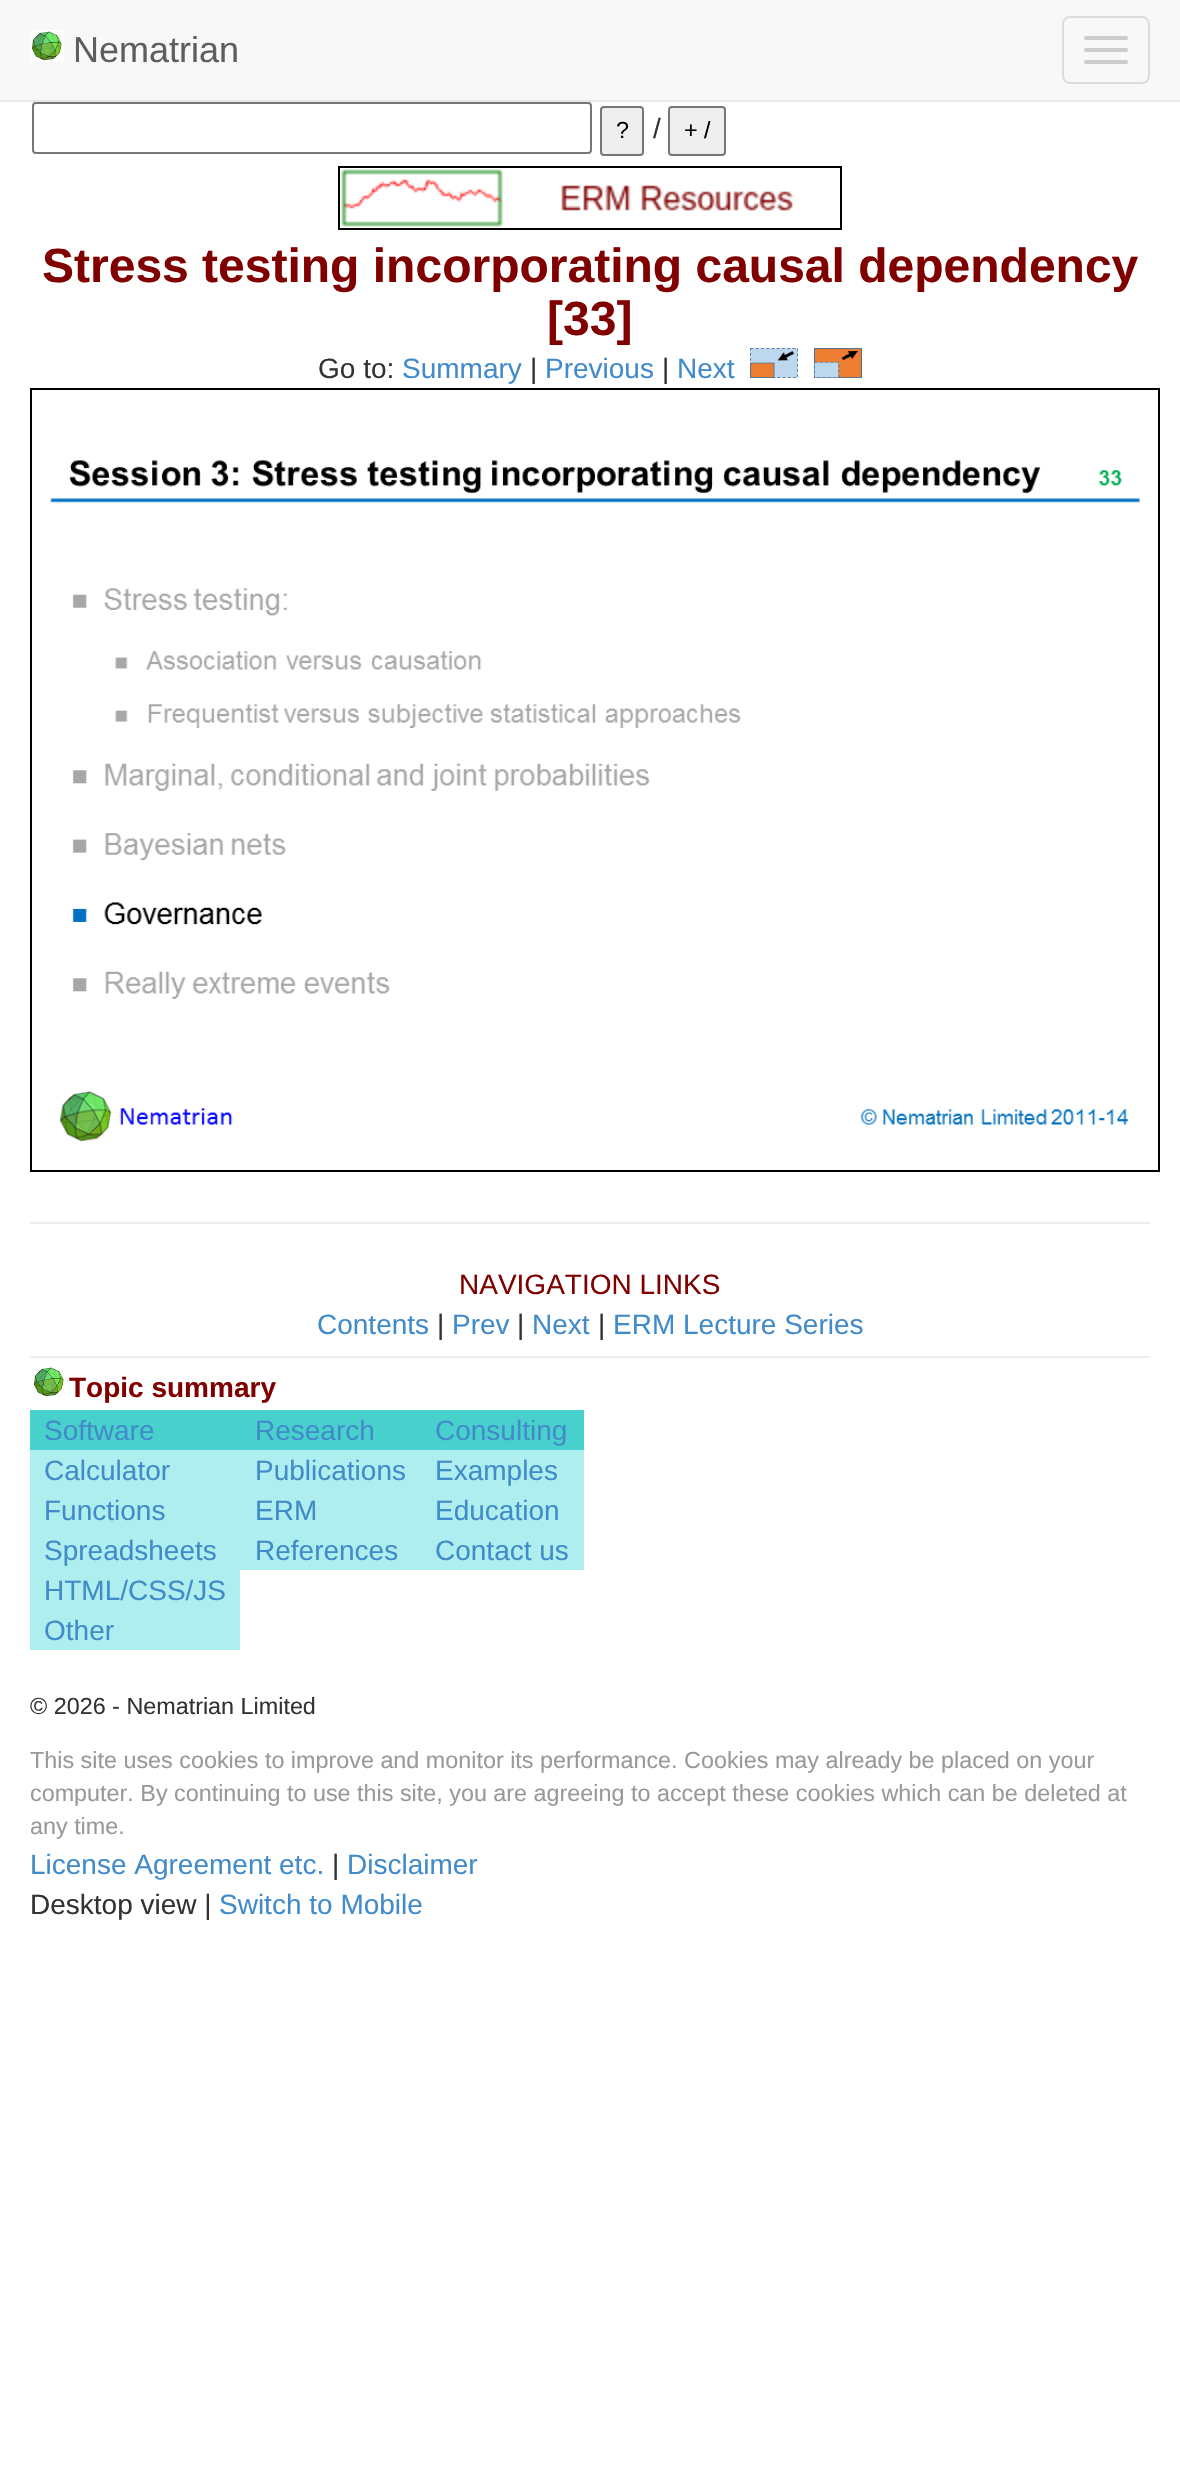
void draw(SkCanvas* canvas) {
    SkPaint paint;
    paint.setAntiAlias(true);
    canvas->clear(0xFFFFFFFF);
    paint.setColor(0xFFF8F8F8);
    canvas->drawRect(SkRect::MakeXYWH(0, 0, 1180, 100), paint);
    paint.setColor(0xFFE7E7E7);
    canvas->drawRect(SkRect::MakeXYWH(0, 100, 1180, 2), paint);
    canvas->drawImageRect(SkImages::DeferredFromEncodedData(SkData::MakeFromFileName("img1.png")), SkRect::MakeXYWH(30, 30, 34, 32), SkSamplingOptions());
    SkFont font1(fontMgr->matchFamilyStyle("Liberation Sans", SkFontStyle::Normal()), 36);
    font1.setSubpixel(true);
    paint.setColor(0xFF5E5E5E);
    canvas->drawString("Nematrian", 73, 62, font1, paint);
    paint.setStyle(SkPaint::kStroke_Style);
    paint.setStrokeWidth(2);
    paint.setColor(0xFFDDDDDD);
    canvas->drawRoundRect(SkRect::MakeXYWH(1063, 17, 86, 66), 7, 7, paint);
    paint.setStyle(SkPaint::kFill_Style);
    paint.setColor(0xFFCCCCCC);
    canvas->drawRoundRect(SkRect::MakeXYWH(1084, 36, 44, 4), 2, 2, paint);
    canvas->drawRoundRect(SkRect::MakeXYWH(1084, 48, 44, 4), 2, 2, paint);
    canvas->drawRoundRect(SkRect::MakeXYWH(1084, 60, 44, 4), 2, 2, paint);
    paint.setStyle(SkPaint::kStroke_Style);
    paint.setColor(0xFF767676);
    canvas->drawRoundRect(SkRect::MakeXYWH(33, 103, 558, 50), 3, 3, paint);
    paint.setStyle(SkPaint::kFill_Style);
    paint.setColor(0xFFEFEFEF);
    canvas->drawRoundRect(SkRect::MakeXYWH(601, 107, 42, 48), 3, 3, paint);
    paint.setStyle(SkPaint::kStroke_Style);
    paint.setColor(0xFF767676);
    canvas->drawRoundRect(SkRect::MakeXYWH(601, 107, 42, 48), 3, 3, paint);
    SkFont font2(fontMgr->matchFamilyStyle("Liberation Sans", SkFontStyle::Normal()), 23.35f);
    font2.setSubpixel(true);
    paint.setStyle(SkPaint::kFill_Style);
    paint.setColor(0xFF000000);
    canvas->drawString("?", 616, 138, font2, paint);
    SkFont font3(fontMgr->matchFamilyStyle("Liberation Sans", SkFontStyle::Normal()), 28);
    font3.setSubpixel(true);
    paint.setColor(0xFF333333);
    canvas->drawString("/", 653, 138, font3, paint);
    paint.setColor(0xFFEFEFEF);
    canvas->drawRoundRect(SkRect::MakeXYWH(669, 107, 56, 48), 3, 3, paint);
    paint.setStyle(SkPaint::kStroke_Style);
    paint.setColor(0xFF767676);
    canvas->drawRoundRect(SkRect::MakeXYWH(669, 107, 56, 48), 3, 3, paint);
    paint.setStyle(SkPaint::kFill_Style);
    paint.setColor(0xFF000000);
    canvas->drawString("+ /", 684, 138, font2, paint);
    paint.setStyle(SkPaint::kStroke_Style);
    canvas->drawRect(SkRect::MakeXYWH(339, 167, 502, 62), paint);
    canvas->drawImageRect(SkImages::DeferredFromEncodedData(SkData::MakeFromFileName("img2.png")), SkRect::MakeXYWH(341, 169, 452, 58), SkSamplingOptions());
    SkFont font4(fontMgr->matchFamilyStyle("Liberation Sans", SkFontStyle::Bold()), 48);
    font4.setSubpixel(true);
    paint.setStyle(SkPaint::kFill_Style);
    paint.setColor(0xFF800000);
    canvas->drawString("Stress testing incorporating causal dependency", 42, 282, font4, paint);
    canvas->drawString("[33]", 547, 335, font4, paint);
    paint.setColor(0xFF333333);
    canvas->drawString("Go to:", 318, 378, font3, paint);
    paint.setColor(0xFF428BCA);
    canvas->drawString("Summary", 402, 378, font3, paint);
    paint.setColor(0xFF333333);
    canvas->drawString("|", 530, 378, font3, paint);
    paint.setColor(0xFF428BCA);
    canvas->drawString("Previous", 545, 378, font3, paint);
    paint.setColor(0xFF333333);
    canvas->drawString("|", 662, 378, font3, paint);
    paint.setColor(0xFF428BCA);
    canvas->drawString("Next", 677, 378, font3, paint);
    canvas->drawImageRect(SkImages::DeferredFromEncodedData(SkData::MakeFromFileName("img3.png")), SkRect::MakeXYWH(750, 348, 48, 30), SkSamplingOptions());
    canvas->drawImageRect(SkImages::DeferredFromEncodedData(SkData::MakeFromFileName("img4.png")), SkRect::MakeXYWH(814, 348, 48, 30), SkSamplingOptions());
    paint.setStyle(SkPaint::kStroke_Style);
    paint.setColor(0xFF000000);
    canvas->drawRect(SkRect::MakeXYWH(31, 389, 1128, 782), paint);
    canvas->drawImageRect(SkImages::DeferredFromEncodedData(SkData::MakeFromFileName("img5.png")), SkRect::MakeXYWH(50, 460, 1090, 682), SkSamplingOptions());
    paint.setStyle(SkPaint::kFill_Style);
    paint.setColor(0xFFEEEEEE);
    canvas->drawRect(SkRect::MakeXYWH(30, 1222, 1120, 2), paint);
    paint.setColor(0xFF800000);
    canvas->drawString("NAVIGATION LINKS", 459, 1294, font3, paint);
    paint.setColor(0xFF428BCA);
    canvas->drawString("Contents", 317, 1334, font3, paint);
    paint.setColor(0xFF333333);
    canvas->drawString("|", 437, 1334, font3, paint);
    paint.setColor(0xFF428BCA);
    canvas->drawString("Prev", 452, 1334, font3, paint);
    paint.setColor(0xFF333333);
    canvas->drawString("|", 517, 1334, font3, paint);
    paint.setColor(0xFF428BCA);
    canvas->drawString("Next", 532, 1334, font3, paint);
    paint.setColor(0xFF333333);
    canvas->drawString("|", 598, 1334, font3, paint);
    paint.setColor(0xFF428BCA);
    canvas->drawString("ERM Lecture Series", 613, 1334, font3, paint);
    paint.setColor(0xFFEEEEEE);
    canvas->drawRect(SkRect::MakeXYWH(30, 1356, 1120, 2), paint);
    canvas->drawImageRect(SkImages::DeferredFromEncodedData(SkData::MakeFromFileName("img6.png")), SkRect::MakeXYWH(32, 1366, 32, 31), SkSamplingOptions());
    SkFont font5(fontMgr->matchFamilyStyle("Liberation Sans", SkFontStyle::Bold()), 28);
    font5.setSubpixel(true);
    paint.setColor(0xFF800000);
    canvas->drawString("Topic summary", 69, 1397, font5, paint);
    paint.setColor(0xFF48D1CC);
    canvas->drawRect(SkRect::MakeXYWH(30, 1410, 554, 40), paint);
    paint.setColor(0xFF428BCA);
    canvas->drawString("Software", 44, 1440, font3, paint);
    canvas->drawString("Research", 255, 1440, font3, paint);
    canvas->drawString("Consulting", 435, 1440, font3, paint);
    paint.setColor(0xFFAFEEEE);
    canvas->drawRect(SkRect::MakeXYWH(30, 1450, 554, 40), paint);
    paint.setColor(0xFF428BCA);
    canvas->drawString("Calculator", 44, 1480, font3, paint);
    canvas->drawString("Publications", 255, 1480, font3, paint);
    canvas->drawString("Examples", 435, 1480, font3, paint);
    paint.setColor(0xFFAFEEEE);
    canvas->drawRect(SkRect::MakeXYWH(30, 1490, 554, 40), paint);
    paint.setColor(0xFF428BCA);
    canvas->drawString("Functions", 44, 1520, font3, paint);
    canvas->drawString("ERM", 255, 1520, font3, paint);
    canvas->drawString("Education", 435, 1520, font3, paint);
    paint.setColor(0xFFAFEEEE);
    canvas->drawRect(SkRect::MakeXYWH(30, 1530, 554, 40), paint);
    paint.setColor(0xFF428BCA);
    canvas->drawString("Spreadsheets", 44, 1560, font3, paint);
    canvas->drawString("References", 255, 1560, font3, paint);
    canvas->drawString("Contact us", 435, 1560, font3, paint);
    paint.setColor(0xFFAFEEEE);
    canvas->drawRect(SkRect::MakeXYWH(30, 1570, 210, 80), paint);
    paint.setColor(0xFF428BCA);
    canvas->drawString("HTML/CSS/JS", 44, 1600, font3, paint);
    canvas->drawString("Other", 44, 1640, font3, paint);
    paint.setColor(0xFF333333);
    canvas->drawString("© 2026 - Nematrian Limited", 30, 1714, font2, paint);
    paint.setColor(0xFF999999);
    canvas->drawString("This site uses cookies to improve and monitor its performance. Cookies may already be placed on your", 30, 1768, font2, paint);
    canvas->drawString("computer. By continuing to use this site, you are agreeing to accept these cookies which can be deleted at", 30, 1801, font2, paint);
    canvas->drawString("any time.", 30, 1834, font2, paint);
    paint.setColor(0xFF428BCA);
    canvas->drawString("License Agreement etc.", 30, 1874, font3, paint);
    paint.setColor(0xFF333333);
    canvas->drawString("|", 332, 1874, font3, paint);
    paint.setColor(0xFF428BCA);
    canvas->drawString("Disclaimer", 347, 1874, font3, paint);
    paint.setColor(0xFF333333);
    canvas->drawString("Desktop view |", 30, 1914, font3, paint);
    paint.setColor(0xFF428BCA);
    canvas->drawString("Switch to Mobile", 219, 1914, font3, paint);
}
